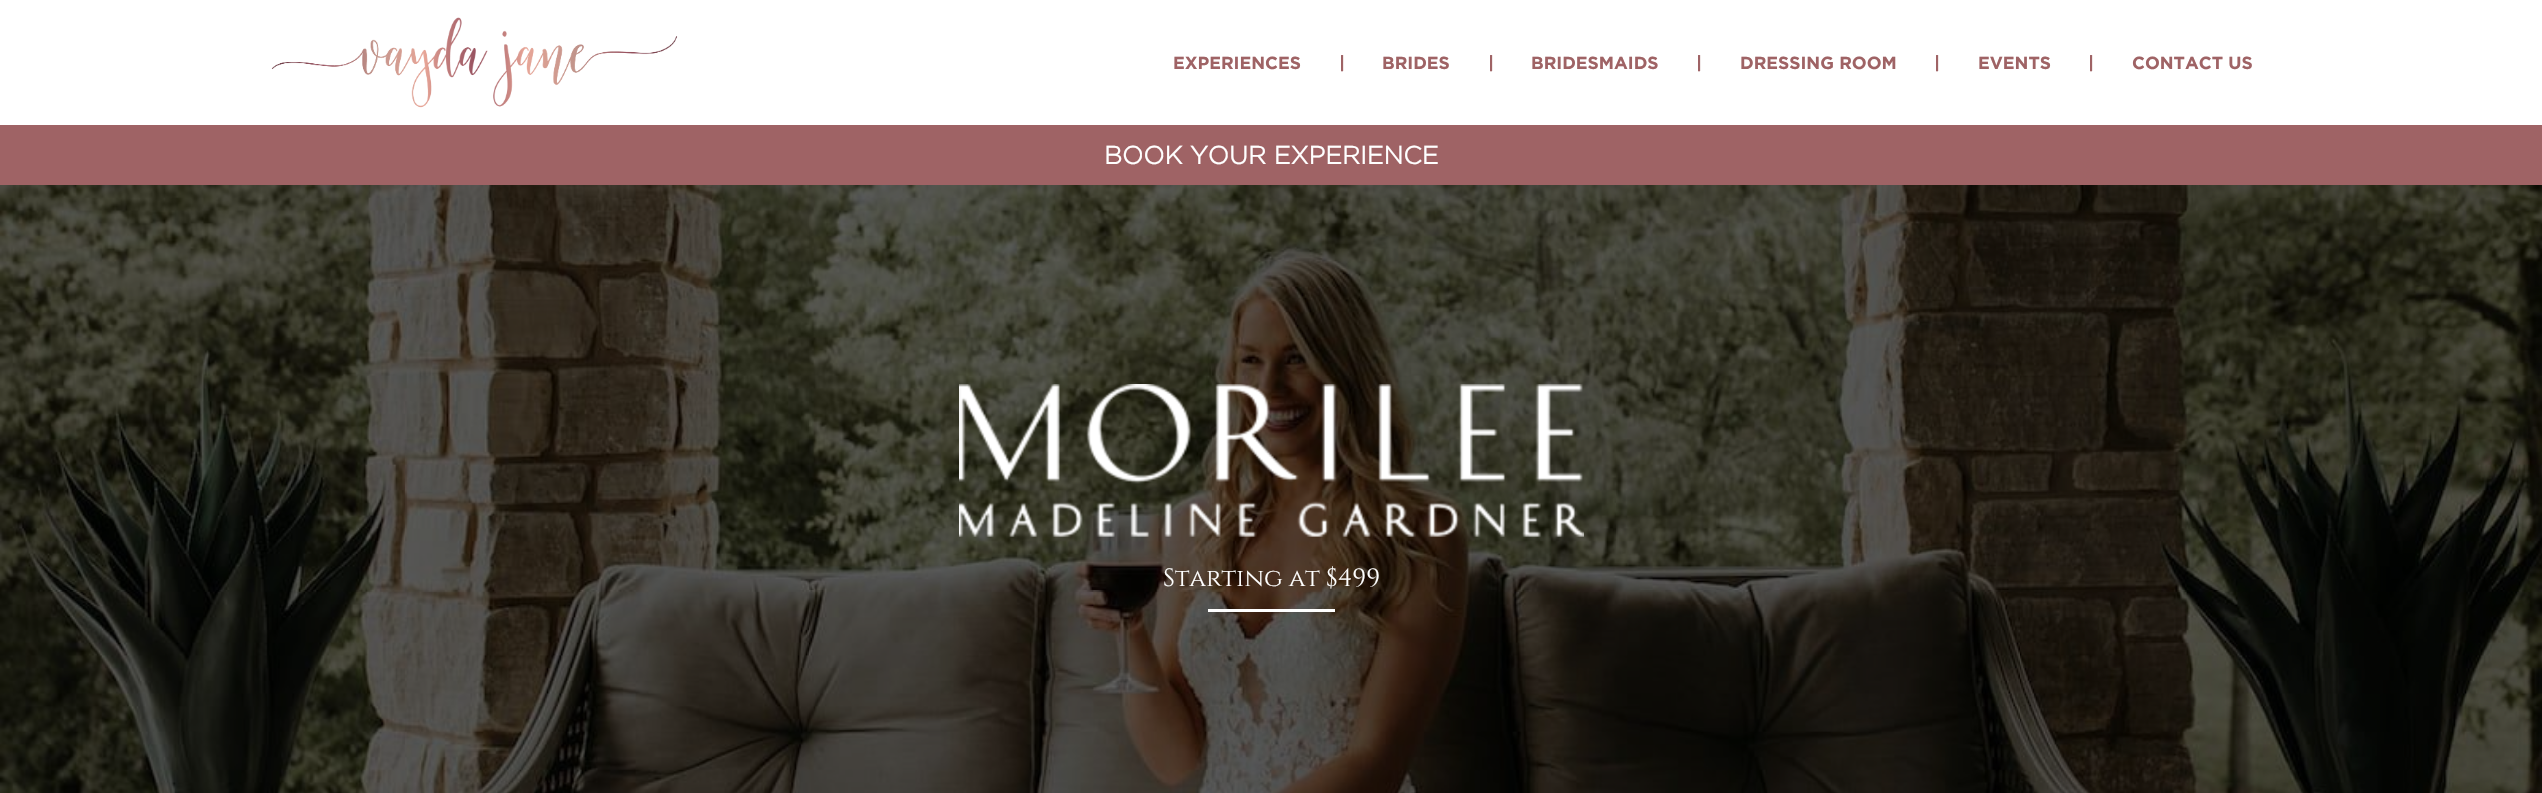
void draw(SkCanvas* canvas) {
    SkPaint paint;
    paint.setAntiAlias(true);
    canvas->clear(0xFFFFFFFF);
    canvas->drawImageRect(SkImages::DeferredFromEncodedData(SkData::MakeFromFileName("img1.png")), SkRect::MakeXYWH(271, 17, 407, 91), SkSamplingOptions());
    SkFont font1(fontMgr->matchFamilyStyle("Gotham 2", SkFontStyle::Bold()), 17.5f);
    font1.setSubpixel(true);
    paint.setColor(0xFF9F6365);
    canvas->drawString("EXPERIENCES", 1173, 69, font1, paint);
    canvas->drawString("|", 1339, 69, font1, paint);
    canvas->drawString("BRIDES", 1382, 69, font1, paint);
    canvas->drawString("|", 1488, 69, font1, paint);
    canvas->drawString("BRIDESMAIDS", 1531, 69, font1, paint);
    canvas->drawString("|", 1696, 69, font1, paint);
    canvas->drawString("DRESSING ROOM", 1740, 69, font1, paint);
    canvas->drawString("|", 1934, 69, font1, paint);
    canvas->drawString("EVENTS", 1978, 69, font1, paint);
    canvas->drawString("|", 2088, 69, font1, paint);
    canvas->drawString("CONTACT US", 2132, 69, font1, paint);
    canvas->drawRect(SkRect::MakeXYWH(0, 125, 2542, 60), paint);
    SkFont font2(fontMgr->matchFamilyStyle("Gotham", SkFontStyle::Bold()), 25);
    font2.setSubpixel(true);
    paint.setColor(0xFFFFFFFF);
    canvas->drawString("BOOK YOUR EXPERIENCE", 1104, 164, font2, paint);
    canvas->drawImageRect(SkImages::DeferredFromEncodedData(SkData::MakeFromFileName("img2.png")), SkRect::MakeXYWH(0, 185, 2542, 608), SkSamplingOptions());
    canvas->drawImageRect(SkImages::DeferredFromEncodedData(SkData::MakeFromFileName("img3.png")), SkRect::MakeXYWH(959, 384, 625, 153), SkSamplingOptions());
    SkFont font3(fontMgr->matchFamilyStyle("Cinzel", SkFontStyle::Normal()), 25);
    font3.setSubpixel(true);
    canvas->drawString("Starting at $499", 1163, 586, font3, paint);
    canvas->drawRect(SkRect::MakeXYWH(1208, 609, 127, 3), paint);
}
